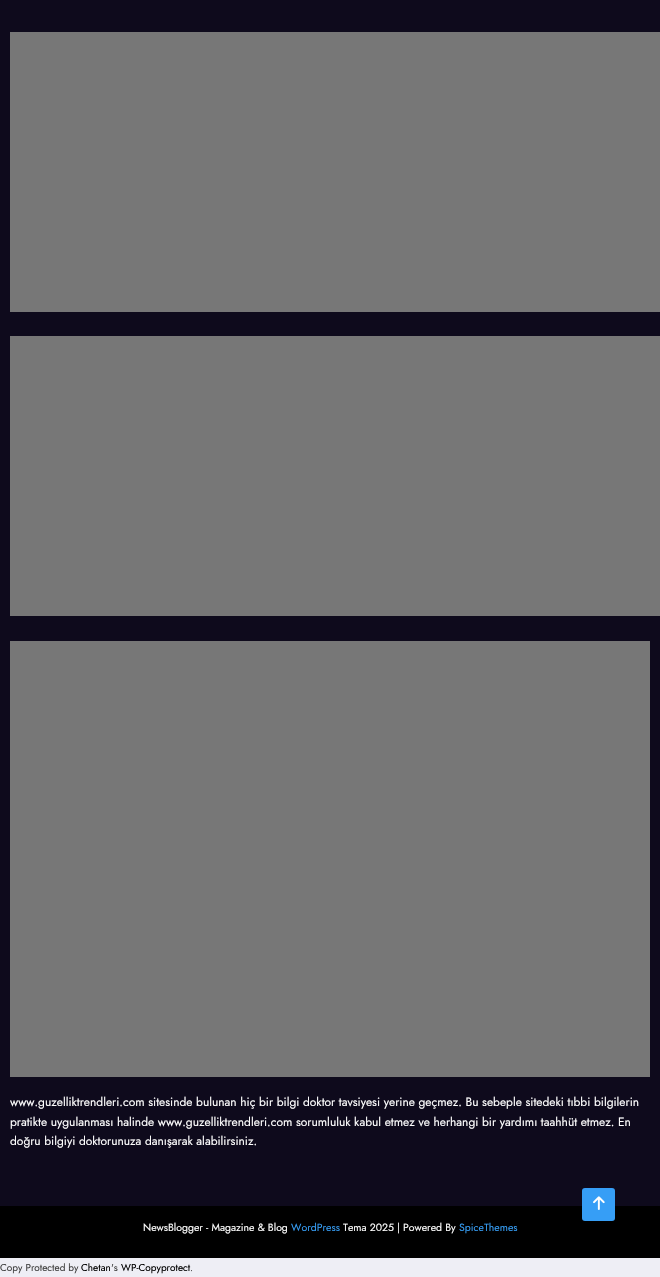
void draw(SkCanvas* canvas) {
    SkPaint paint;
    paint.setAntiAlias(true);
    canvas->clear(0xFFEEEEF5);
    paint.setColor(0xFF0E0A1C);
    canvas->drawRect(SkRect::MakeXYWH(0, 0, 660, 1206), paint);
    paint.setColor(0xFF777777);
    canvas->drawRect(SkRect::MakeXYWH(10, 32, 650, 280), paint);
    canvas->drawRect(SkRect::MakeXYWH(10, 336, 650, 280), paint);
    canvas->drawRect(SkRect::MakeXYWH(10, 641, 640, 436), paint);
    SkFont font1(fontMgr->matchFamilyStyle("Jost", SkFontStyle::Normal()), 12);
    font1.setSubpixel(true);
    paint.setColor(0xFFFFFFFF);
    canvas->drawString("www.guzelliktrendleri.com sitesinde bulunan hiç bir bilgi doktor tavsiyesi yerine geçmez. Bu sebeple sitedeki tıbbi bilgilerin", 10, 1106, font1, paint);
    canvas->drawString("pratikte uygulanması halinde www.guzelliktrendleri.com sorumluluk kabul etmez ve herhangi bir yardımı taahhüt etmez. En", 10, 1126, font1, paint);
    canvas->drawString("doğru bilgiyi doktorunuza danışarak alabilirsiniz.", 10, 1145, font1, paint);
    paint.setColor(0xFF000000);
    canvas->drawRect(SkRect::MakeXYWH(0, 1206, 660, 52), paint);
    SkFont font2(fontMgr->matchFamilyStyle("Jost", SkFontStyle::Normal()), 10.5f);
    font2.setSubpixel(true);
    paint.setColor(0xFFFFFFFF);
    canvas->drawString("NewsBlogger - Magazine & Blog", 143, 1231, font2, paint);
    paint.setColor(0xFF369EF6);
    canvas->drawString("WordPress", 291, 1231, font2, paint);
    paint.setColor(0xFFFFFFFF);
    canvas->drawString("Tema 2025 | Powered By", 343, 1231, font2, paint);
    paint.setColor(0xFF369EF6);
    canvas->drawString("SpiceThemes", 459, 1231, font2, paint);
    canvas->drawRoundRect(SkRect::MakeXYWH(582, 1188, 33, 33), 3, 3, paint);
    canvas->drawImageRect(SkImages::DeferredFromEncodedData(SkData::MakeFromFileName("img1.png")), SkRect::MakeXYWH(593, 1196, 12, 14), SkSamplingOptions());
    SkFont font3(fontMgr->matchFamilyStyle("Jost", SkFontStyle::Normal()), 10);
    font3.setSubpixel(true);
    paint.setColor(0xFF404040);
    canvas->drawString("Copy Protected by", 0, 1271, font3, paint);
    paint.setColor(0xFF000000);
    canvas->drawString("Chetan", 81, 1271, font3, paint);
    paint.setColor(0xFF404040);
    canvas->drawString("'s", 111, 1271, font3, paint);
    paint.setColor(0xFF000000);
    canvas->drawString("WP-Copyprotect", 121, 1271, font3, paint);
    paint.setColor(0xFF404040);
    canvas->drawString(".", 190, 1271, font3, paint);
}
